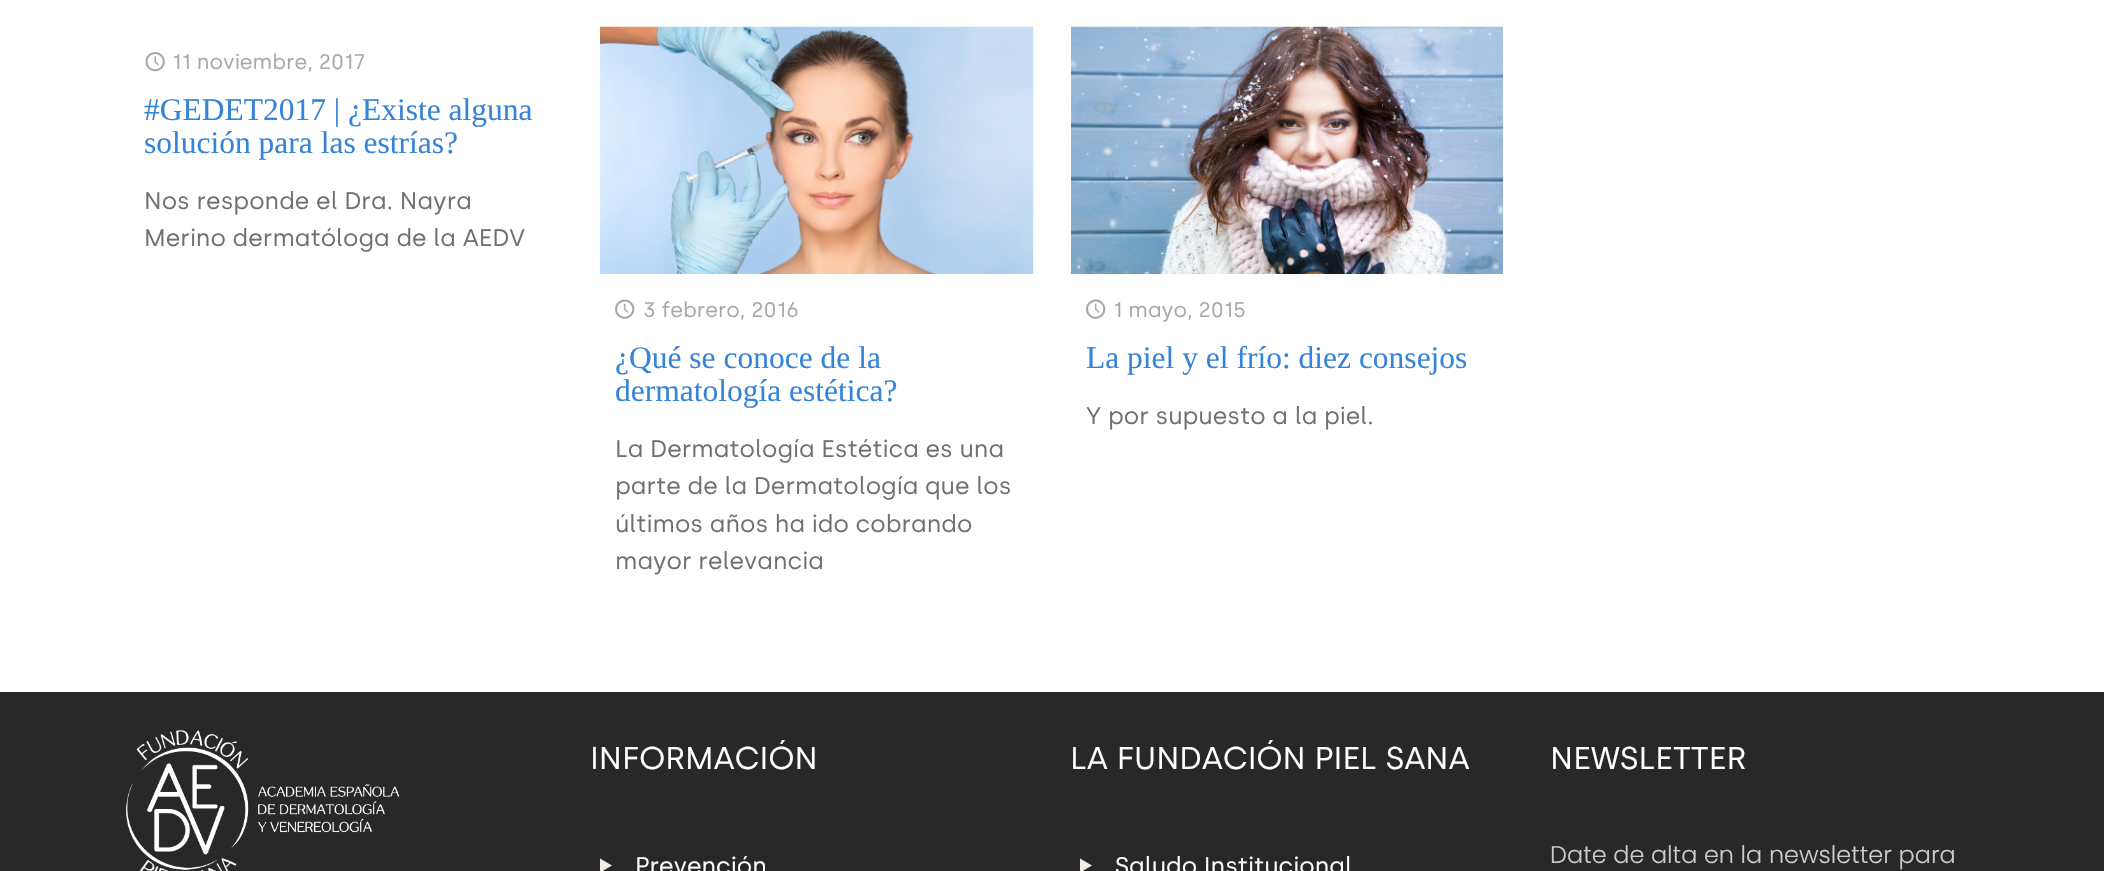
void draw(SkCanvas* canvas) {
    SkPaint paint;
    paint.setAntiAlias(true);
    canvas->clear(0xFFFFFFFF);
    canvas->drawImageRect(SkImages::DeferredFromEncodedData(SkData::MakeFromFileName("img1.png")), SkRect::MakeXYWH(145, 52, 20, 20), SkSamplingOptions());
    SkFont font1(fontMgr->matchFamilyStyle("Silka", SkFontStyle::Normal()), 21);
    font1.setSubpixel(true);
    paint.setColor(0xFFA8A8A8);
    canvas->drawString("11 noviembre, 2017", 172, 69, font1, paint);
    SkFont font2(fontMgr->matchFamilyStyle("Liberation Serif", SkFontStyle::Normal()), 31.5f);
    font2.setSubpixel(true);
    paint.setColor(0xFF3584DA);
    canvas->drawString("#GEDET2017 | ¿Existe alguna", 144, 120, font2, paint);
    canvas->drawString("solución para las estrías?", 144, 153, font2, paint);
    SkFont font3(fontMgr->matchFamilyStyle("Silka", SkFontStyle::Normal()), 24);
    font3.setSubpixel(true);
    paint.setColor(0xFF707070);
    canvas->drawString("Nos responde el Dra. Nayra", 144, 209, font3, paint);
    canvas->drawString("Merino dermatóloga de la AEDV", 144, 246, font3, paint);
    canvas->drawImageRect(SkImages::DeferredFromEncodedData(SkData::MakeFromFileName("img2.png")), SkRect::MakeXYWH(600, 26, 434, 248), SkSamplingOptions());
    canvas->drawImageRect(SkImages::DeferredFromEncodedData(SkData::MakeFromFileName("img3.png")), SkRect::MakeXYWH(615, 299, 20, 20), SkSamplingOptions());
    paint.setColor(0xFFA8A8A8);
    canvas->drawString("3 febrero, 2016", 643, 317, font1, paint);
    paint.setColor(0xFF3584DA);
    canvas->drawString("¿Qué se conoce de la", 615, 368, font2, paint);
    canvas->drawString("dermatología estética?", 615, 401, font2, paint);
    paint.setColor(0xFF707070);
    canvas->drawString("La Dermatología Estética es una", 615, 457, font3, paint);
    canvas->drawString("parte de la Dermatología que los", 615, 494, font3, paint);
    canvas->drawString("últimos años ha ido cobrando", 615, 532, font3, paint);
    canvas->drawString("mayor relevancia", 615, 569, font3, paint);
    canvas->drawImageRect(SkImages::DeferredFromEncodedData(SkData::MakeFromFileName("img4.png")), SkRect::MakeXYWH(1071, 26, 432, 248), SkSamplingOptions());
    canvas->drawImageRect(SkImages::DeferredFromEncodedData(SkData::MakeFromFileName("img3.png")), SkRect::MakeXYWH(1086, 299, 20, 20), SkSamplingOptions());
    paint.setColor(0xFFA8A8A8);
    canvas->drawString("1 mayo, 2015", 1113, 317, font1, paint);
    paint.setColor(0xFF3584DA);
    canvas->drawString("La piel y el frío: diez consejos", 1086, 368, font2, paint);
    paint.setColor(0xFF707070);
    canvas->drawString("Y por supuesto a la piel.", 1086, 424, font3, paint);
    paint.setColor(0xFF282828);
    canvas->drawRect(SkRect::MakeXYWH(0, 692, 2104, 179), paint);
    canvas->drawImageRect(SkImages::DeferredFromEncodedData(SkData::MakeFromFileName("img5.png")), SkRect::MakeXYWH(125, 730, 275, 141), SkSamplingOptions());
    SkFont font4(fontMgr->matchFamilyStyle("Silka", SkFontStyle::Normal()), 31.5f);
    font4.setSubpixel(true);
    paint.setColor(0xFFFFFFFF);
    canvas->drawString("INFORMACIÓN", 590, 769, font4, paint);
    paint.setColor(0xFFF4EDE4);
    canvas->drawPath(SkPathBuilder().moveTo(600, 858.5f).lineTo(612, 865.5f).lineTo(600, 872.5f).close().detach(), paint);
    paint.setColor(0xFFFFFFFF);
    canvas->drawString("Prevención", 635, 874, font3, paint);
    canvas->drawString("LA FUNDACIÓN PIEL SANA", 1070, 769, font4, paint);
    paint.setColor(0xFFF4EDE4);
    canvas->drawPath(SkPathBuilder().moveTo(1080, 858.5f).lineTo(1092, 865.5f).lineTo(1080, 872.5f).close().detach(), paint);
    paint.setColor(0xFFFFFFFF);
    canvas->drawString("Saludo Institucional", 1115, 874, font3, paint);
    canvas->drawString("NEWSLETTER", 1550, 769, font4, paint);
    SkFont font5(fontMgr->matchFamilyStyle("Poppins", SkFontStyle(300, SkFontStyle::kNormal_Width, SkFontStyle::kUpright_Slant)), 24);
    font5.setSubpixel(true);
    paint.setColor(0xFFCCCCCC);
    canvas->drawString("Date de alta en la newsletter para", 1550, 863, font5, paint);
}
